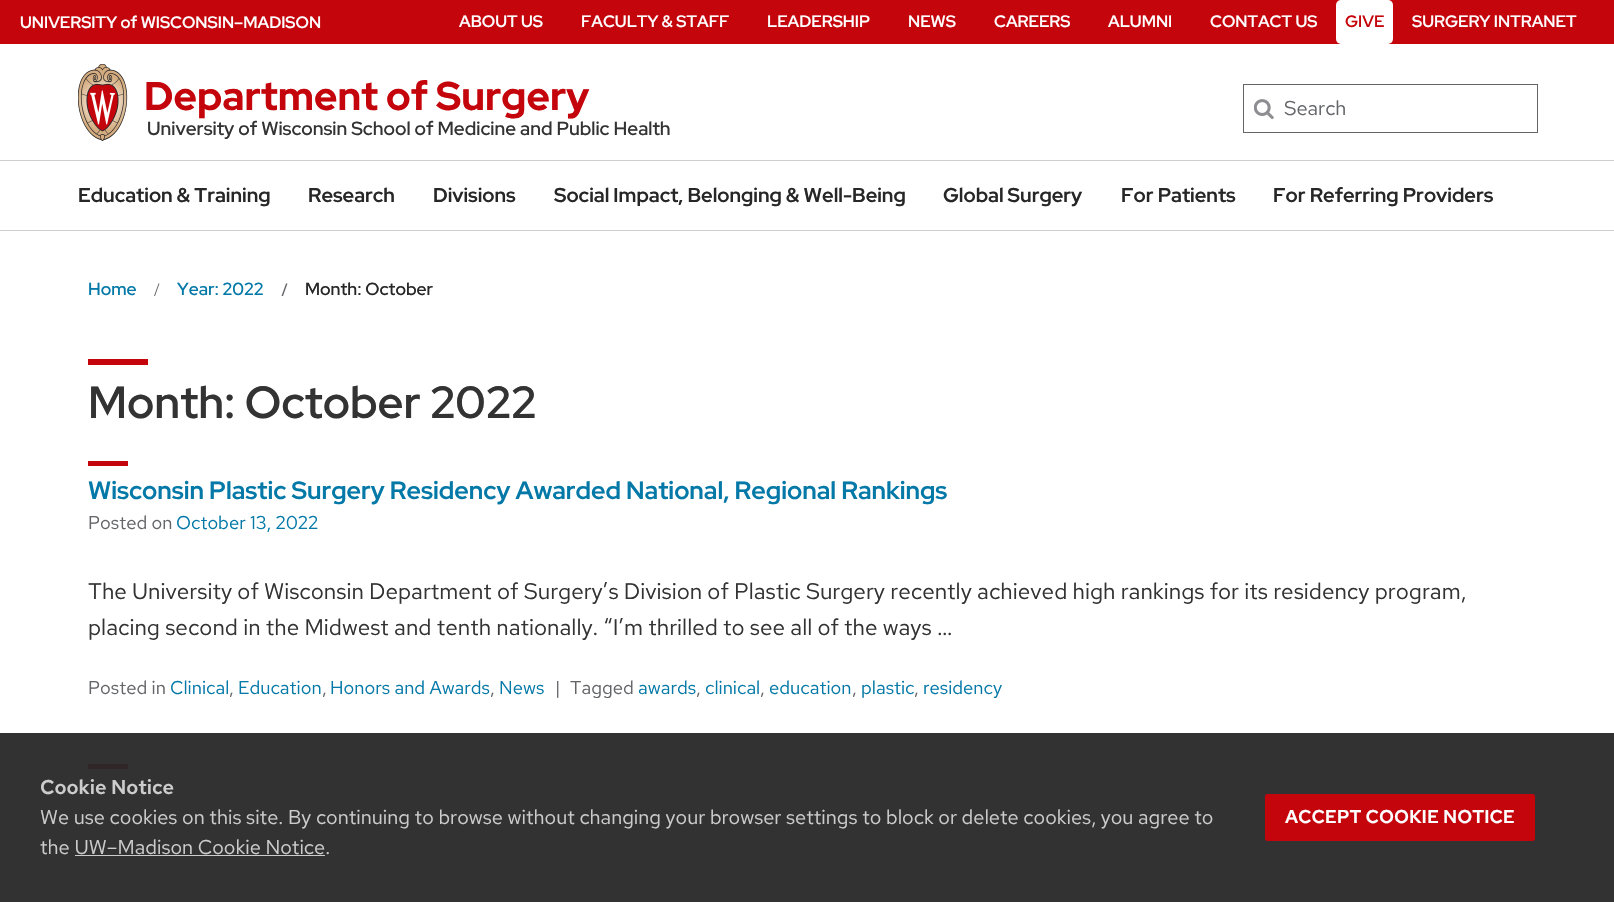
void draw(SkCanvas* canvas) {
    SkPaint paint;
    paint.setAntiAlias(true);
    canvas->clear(0xFFFFFFFF);
    paint.setColor(0xFF333233);
    canvas->drawRect(SkRect::MakeXYWH(0, 733, 1614, 169), paint);
    paint.setColor(0xFFC5050C);
    canvas->drawRect(SkRect::MakeXYWH(0, 0, 1614, 44), paint);
    SkFont font1(fontMgr->matchFamilyStyle("Red Hat Display", SkFontStyle(600, SkFontStyle::kNormal_Width, SkFontStyle::kUpright_Slant)), 16.5f);
    font1.setSubpixel(true);
    paint.setColor(0xFFFFFFFF);
    canvas->drawString("UNIVERSITY of WISCONSIN–MADISON", 20, 28, font1, paint);
    canvas->drawString("ABOUT US", 459, 27, font1, paint);
    canvas->drawString("FACULTY & STAFF", 581, 27, font1, paint);
    canvas->drawString("LEADERSHIP", 767, 27, font1, paint);
    canvas->drawString("NEWS", 908, 27, font1, paint);
    canvas->drawString("CAREERS", 994, 27, font1, paint);
    canvas->drawString("ALUMNI", 1108, 27, font1, paint);
    canvas->drawString("CONTACT US", 1210, 27, font1, paint);
    canvas->drawRoundRect(SkRect::MakeXYWH(1336, 0, 57, 44), 5, 5, paint);
    paint.setColor(0xFFC5050C);
    canvas->drawString("GIVE", 1345, 27, font1, paint);
    paint.setColor(0xFFFFFFFF);
    canvas->drawString("SURGERY INTRANET", 1412, 27, font1, paint);
    paint.setColor(0xFFCFCFCF);
    canvas->drawRect(SkRect::MakeXYWH(0, 160, 1614, 1), paint);
    canvas->drawRect(SkRect::MakeXYWH(0, 230, 1614, 1), paint);
    SkFont font2(fontMgr->matchFamilyStyle("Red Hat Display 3", SkFontStyle(600, SkFontStyle::kNormal_Width, SkFontStyle::kUpright_Slant)), 20);
    font2.setSubpixel(true);
    paint.setColor(0xFF282728);
    canvas->drawString("Education & Training", 78, 202, font2, paint);
    canvas->drawString("Research", 308, 202, font2, paint);
    canvas->drawString("Divisions", 433, 202, font2, paint);
    canvas->drawString("Social Impact, Belonging & Well-Being", 554, 202, font2, paint);
    canvas->drawString("Global Surgery", 943, 202, font2, paint);
    canvas->drawString("For Patients", 1121, 202, font2, paint);
    canvas->drawString("For Referring Providers", 1273, 202, font2, paint);
    canvas->drawImageRect(SkImages::DeferredFromEncodedData(SkData::MakeFromFileName("img1.png")), SkRect::MakeXYWH(78, 64, 50, 77), SkSamplingOptions());
    SkFont font3(fontMgr->matchFamilyStyle("Red Hat Display", SkFontStyle(800, SkFontStyle::kNormal_Width, SkFontStyle::kUpright_Slant)), 40);
    font3.setSubpixel(true);
    paint.setColor(0xFFC5050C);
    canvas->drawString("Department of Surgery", 144, 110, font3, paint);
    SkFont font4(fontMgr->matchFamilyStyle("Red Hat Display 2", SkFontStyle(600, SkFontStyle::kNormal_Width, SkFontStyle::kUpright_Slant)), 19);
    font4.setSubpixel(true);
    paint.setColor(0xFF333333);
    canvas->drawString("University of Wisconsin School of Medicine and Public Health", 147, 135, font4, paint);
    canvas->drawImageRect(SkImages::DeferredFromEncodedData(SkData::MakeFromFileName("img2.png")), SkRect::MakeXYWH(1254, 99, 20, 20), SkSamplingOptions());
    paint.setStyle(SkPaint::kStroke_Style);
    paint.setStrokeWidth(1);
    paint.setColor(0xFF646569);
    canvas->drawRect(SkRect::MakeXYWH(1243.5f, 84.5f, 294, 48), paint);
    SkFont font5(fontMgr->matchFamilyStyle("Red Hat Text", SkFontStyle::Normal()), 20);
    font5.setSubpixel(true);
    paint.setStyle(SkPaint::kFill_Style);
    canvas->drawString("Search", 1284, 115, font5, paint);
    SkFont font6(fontMgr->matchFamilyStyle("Red Hat Display", SkFontStyle(500, SkFontStyle::kNormal_Width, SkFontStyle::kUpright_Slant)), 17.5f);
    font6.setSubpixel(true);
    paint.setColor(0xFF0479A8);
    canvas->drawString("Home", 88, 295, font6, paint);
    paint.setColor(0xFF646569);
    canvas->drawPath(SkPathBuilder().moveTo(158.5f, 283.5f).lineTo(159.5f, 283.5f).lineTo(155, 296).lineTo(154, 296).close().detach(), paint);
    paint.setColor(0xFF0479A8);
    canvas->drawString("Year: 2022", 177, 295, font6, paint);
    paint.setColor(0xFF646569);
    canvas->drawPath(SkPathBuilder().moveTo(286, 283.5f).lineTo(287.5f, 283.5f).lineTo(283, 296).lineTo(281.5f, 296).close().detach(), paint);
    paint.setColor(0xFF282728);
    canvas->drawString("Month: October", 305, 295, font6, paint);
    paint.setColor(0xFFC5050C);
    canvas->drawRect(SkRect::MakeXYWH(88, 359, 60, 6), paint);
    SkFont font7(fontMgr->matchFamilyStyle("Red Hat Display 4", SkFontStyle(600, SkFontStyle::kNormal_Width, SkFontStyle::kUpright_Slant)), 45);
    font7.setSubpixel(true);
    paint.setColor(0xFF333333);
    canvas->drawString("Month: October 2022", 88, 418, font7, paint);
    paint.setColor(0xFFC5050C);
    canvas->drawRect(SkRect::MakeXYWH(88, 461, 40, 5), paint);
    SkFont font8(fontMgr->matchFamilyStyle("Red Hat Display 3", SkFontStyle(600, SkFontStyle::kNormal_Width, SkFontStyle::kUpright_Slant)), 25);
    font8.setSubpixel(true);
    paint.setColor(0xFF0479A8);
    canvas->drawString("Wisconsin Plastic Surgery Residency Awarded National, Regional Rankings", 88, 499, font8, paint);
    SkFont font9(fontMgr->matchFamilyStyle("Red Hat Text", SkFontStyle::Normal()), 18.5f);
    font9.setSubpixel(true);
    paint.setColor(0xFF646569);
    canvas->drawString("Posted on", 88, 529, font9, paint);
    paint.setColor(0xFF0479A8);
    canvas->drawString("October 13, 2022", 176, 529, font9, paint);
    SkFont font10(fontMgr->matchFamilyStyle("Red Hat Text", SkFontStyle::Normal()), 22.5f);
    font10.setSubpixel(true);
    paint.setColor(0xFF333333);
    canvas->drawString("The University of Wisconsin Department of Surgery’s Division of Plastic Surgery recently achieved high rankings for its residency program,", 88, 599, font10, paint);
    canvas->drawString("placing second in the Midwest and tenth nationally. “I’m thrilled to see all of the ways …", 88, 635, font10, paint);
    paint.setColor(0xFF646569);
    canvas->drawString("Posted in", 88, 694, font9, paint);
    paint.setColor(0xFF0479A8);
    canvas->drawString("Clinical", 170, 694, font9, paint);
    paint.setColor(0xFF646569);
    canvas->drawString(",", 229, 694, font9, paint);
    paint.setColor(0xFF0479A8);
    canvas->drawString("Education", 238, 694, font9, paint);
    paint.setColor(0xFF646569);
    canvas->drawString(",", 322, 694, font9, paint);
    paint.setColor(0xFF0479A8);
    canvas->drawString("Honors and Awards", 330, 694, font9, paint);
    paint.setColor(0xFF646569);
    canvas->drawString(",", 490, 694, font9, paint);
    paint.setColor(0xFF0479A8);
    canvas->drawString("News", 499, 694, font9, paint);
    paint.setColor(0xFF646569);
    canvas->drawString("|", 555, 694, font9, paint);
    canvas->drawString("Tagged", 570, 694, font9, paint);
    paint.setColor(0xFF0479A8);
    canvas->drawString("awards", 638, 694, font9, paint);
    paint.setColor(0xFF646569);
    canvas->drawString(",", 696, 694, font9, paint);
    paint.setColor(0xFF0479A8);
    canvas->drawString("clinical", 705, 694, font9, paint);
    paint.setColor(0xFF646569);
    canvas->drawString(",", 760, 694, font9, paint);
    paint.setColor(0xFF0479A8);
    canvas->drawString("education", 769, 694, font9, paint);
    paint.setColor(0xFF646569);
    canvas->drawString(",", 852, 694, font9, paint);
    paint.setColor(0xFF0479A8);
    canvas->drawString("plastic", 861, 694, font9, paint);
    paint.setColor(0xFF646569);
    canvas->drawString(",", 914, 694, font9, paint);
    paint.setColor(0xFF0479A8);
    canvas->drawString("residency", 923, 694, font9, paint);
    paint.setColor(0xFF302527);
    canvas->drawRect(SkRect::MakeXYWH(88, 764, 40, 5), paint);
    SkFont font11(fontMgr->matchFamilyStyle("Red Hat Text", SkFontStyle(600, SkFontStyle::kNormal_Width, SkFontStyle::kUpright_Slant)), 20);
    font11.setSubpixel(true);
    paint.setColor(0xFFCCCCCC);
    canvas->drawString("Cookie Notice", 40, 794, font11, paint);
    canvas->drawString("We use cookies on this site. By continuing to browse without changing your browser settings to block or delete cookies, you agree to", 40, 824, font5, paint);
    canvas->drawString("the UW–Madison Cookie Notice.", 40, 854, font5, paint);
    canvas->drawRect(SkRect::MakeXYWH(75, 855, 250, 1), paint);
    paint.setColor(0xFFC5050C);
    canvas->drawRoundRect(SkRect::MakeXYWH(1265, 794, 270, 47), 2.5f, 2.5f, paint);
    SkFont font12(fontMgr->matchFamilyStyle("Red Hat Text", SkFontStyle(600, SkFontStyle::kNormal_Width, SkFontStyle::kUpright_Slant)), 18.5f);
    font12.setSubpixel(true);
    paint.setColor(0xFFFFFFFF);
    canvas->drawString("ACCEPT COOKIE NOTICE", 1285, 823, font12, paint);
}
